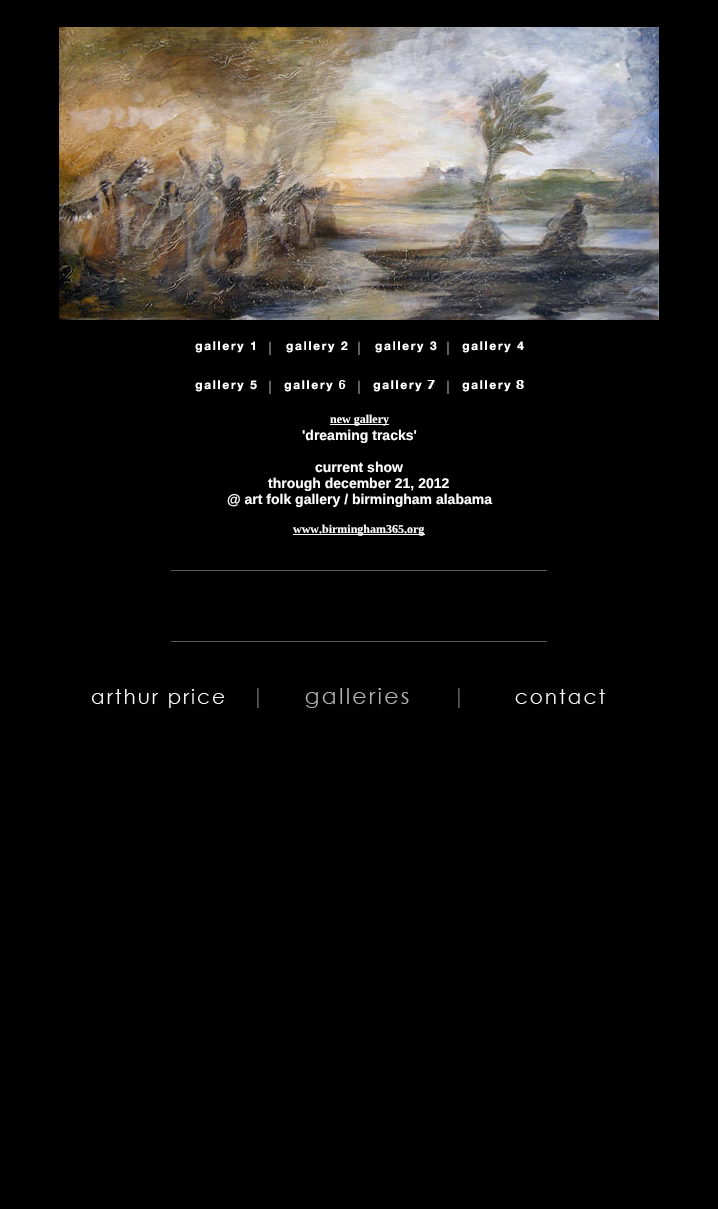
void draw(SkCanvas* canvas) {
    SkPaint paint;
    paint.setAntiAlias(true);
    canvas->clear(0xFF000000);
    canvas->drawImageRect(SkImages::DeferredFromEncodedData(SkData::MakeFromFileName("img1.png")), SkRect::MakeXYWH(59, 27, 600, 293), SkSamplingOptions());
    canvas->drawImageRect(SkImages::DeferredFromEncodedData(SkData::MakeFromFileName("img2.png")), SkRect::MakeXYWH(195, 341, 60, 12), SkSamplingOptions());
    SkFont font1(fontMgr->matchFamilyStyle("Liberation Sans", SkFontStyle::Bold()), 14);
    font1.setSubpixel(true);
    paint.setColor(0xFF666666);
    canvas->drawString("|", 268, 352, font1, paint);
    canvas->drawImageRect(SkImages::DeferredFromEncodedData(SkData::MakeFromFileName("img3.png")), SkRect::MakeXYWH(286, 341, 62, 12), SkSamplingOptions());
    canvas->drawString("|", 357, 352, font1, paint);
    canvas->drawImageRect(SkImages::DeferredFromEncodedData(SkData::MakeFromFileName("img4.png")), SkRect::MakeXYWH(375, 341, 62, 12), SkSamplingOptions());
    canvas->drawString("|", 446, 352, font1, paint);
    canvas->drawImageRect(SkImages::DeferredFromEncodedData(SkData::MakeFromFileName("img5.png")), SkRect::MakeXYWH(462, 341, 62, 12), SkSamplingOptions());
    canvas->drawImageRect(SkImages::DeferredFromEncodedData(SkData::MakeFromFileName("img6.png")), SkRect::MakeXYWH(195, 380, 62, 12), SkSamplingOptions());
    canvas->drawString("|", 268, 391, font1, paint);
    canvas->drawImageRect(SkImages::DeferredFromEncodedData(SkData::MakeFromFileName("img7.png")), SkRect::MakeXYWH(284, 380, 62, 12), SkSamplingOptions());
    canvas->drawString("|", 357, 391, font1, paint);
    canvas->drawImageRect(SkImages::DeferredFromEncodedData(SkData::MakeFromFileName("img8.png")), SkRect::MakeXYWH(373, 380, 62, 12), SkSamplingOptions());
    canvas->drawString("|", 446, 391, font1, paint);
    canvas->drawImageRect(SkImages::DeferredFromEncodedData(SkData::MakeFromFileName("img9.png")), SkRect::MakeXYWH(462, 380, 62, 12), SkSamplingOptions());
    paint.setColor(0xFFFFFFFF);
    canvas->drawRect(SkRect::MakeXYWH(330, 424, 59, 1), paint);
    SkFont font2(fontMgr->matchFamilyStyle("Liberation Serif", SkFontStyle::Bold()), 12);
    font2.setSubpixel(true);
    canvas->drawString("new gallery", 330, 423, font2, paint);
    canvas->drawString("'dreaming tracks'", 302, 440, font1, paint);
    canvas->drawString("current show", 315, 472, font1, paint);
    canvas->drawString("through december 21, 2012", 268, 488, font1, paint);
    canvas->drawString("@ art folk gallery / birmingham alabama", 227, 504, font1, paint);
    canvas->drawRect(SkRect::MakeXYWH(293, 534, 132, 1), paint);
    canvas->drawString("www.birmingham365.org", 293, 533, font2, paint);
    paint.setColor(0xFF595959);
    canvas->drawRect(SkRect::MakeXYWH(171, 570, 376, 1), paint);
    canvas->drawRect(SkRect::MakeXYWH(171, 641, 376, 1), paint);
    canvas->drawImageRect(SkImages::DeferredFromEncodedData(SkData::MakeFromFileName("img10.png")), SkRect::MakeXYWH(87, 687, 144, 24), SkSamplingOptions());
    canvas->drawImageRect(SkImages::DeferredFromEncodedData(SkData::MakeFromFileName("img11.png")), SkRect::MakeXYWH(257, 687, 3, 22), SkSamplingOptions());
    canvas->drawImageRect(SkImages::DeferredFromEncodedData(SkData::MakeFromFileName("img12.png")), SkRect::MakeXYWH(304, 687, 110, 24), SkSamplingOptions());
    canvas->drawImageRect(SkImages::DeferredFromEncodedData(SkData::MakeFromFileName("img11.png")), SkRect::MakeXYWH(458, 687, 3, 22), SkSamplingOptions());
    canvas->drawImageRect(SkImages::DeferredFromEncodedData(SkData::MakeFromFileName("img13.png")), SkRect::MakeXYWH(513, 687, 96, 24), SkSamplingOptions());
}
